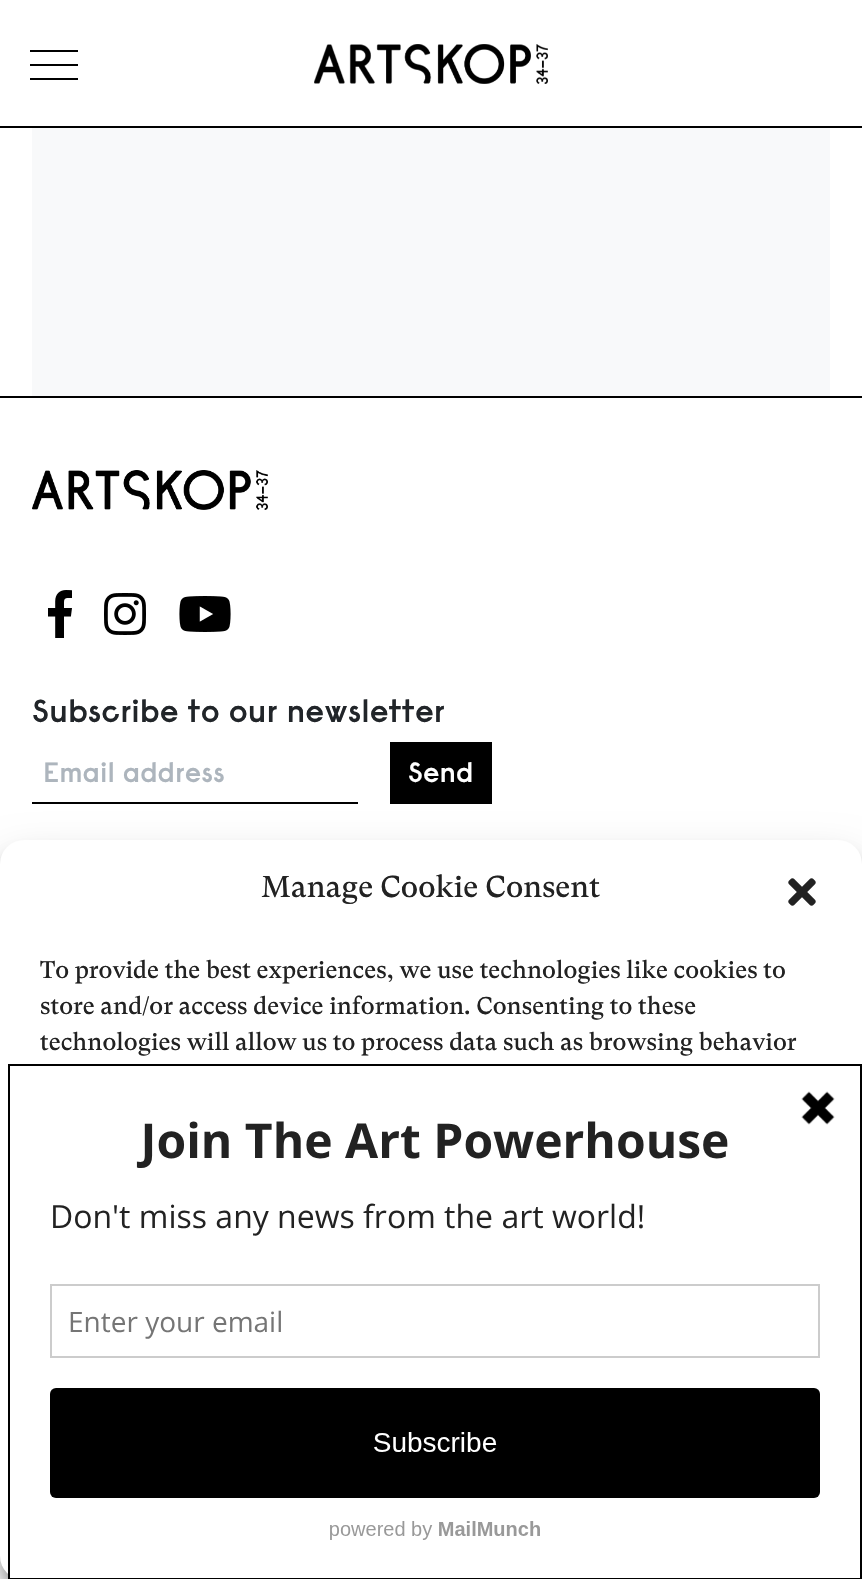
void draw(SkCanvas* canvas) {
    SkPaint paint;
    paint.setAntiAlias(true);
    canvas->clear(0xFFFFFFFF);
    paint.setColor(0xFF000000);
    canvas->drawRect(SkRect::MakeXYWH(0, 126, 862, 2), paint);
    canvas->drawRect(SkRect::MakeXYWH(30, 64, 48, 2), paint);
    canvas->drawRect(SkRect::MakeXYWH(30, 50, 48, 2), paint);
    canvas->drawRect(SkRect::MakeXYWH(30, 78, 48, 2), paint);
    canvas->drawImageRect(SkImages::DeferredFromEncodedData(SkData::MakeFromFileName("img1.png")), SkRect::MakeXYWH(314, 44, 234, 40), SkSamplingOptions());
    paint.setColor(0xFFF8F9FA);
    canvas->drawRect(SkRect::MakeXYWH(32, 128, 798, 268), paint);
    paint.setColor(0xFF000000);
    canvas->drawRect(SkRect::MakeXYWH(0, 396, 862, 2), paint);
    canvas->drawImageRect(SkImages::DeferredFromEncodedData(SkData::MakeFromFileName("img2.png")), SkRect::MakeXYWH(32, 470, 236, 40), SkSamplingOptions());
    canvas->drawImageRect(SkImages::DeferredFromEncodedData(SkData::MakeFromFileName("img3.png")), SkRect::MakeXYWH(48, 590, 24, 48), SkSamplingOptions());
    canvas->drawImageRect(SkImages::DeferredFromEncodedData(SkData::MakeFromFileName("img4.png")), SkRect::MakeXYWH(104, 593, 42, 42), SkSamplingOptions());
    canvas->drawImageRect(SkImages::DeferredFromEncodedData(SkData::MakeFromFileName("img5.png")), SkRect::MakeXYWH(179, 596, 52, 36), SkSamplingOptions());
    SkFont font1(fontMgr->matchFamilyStyle("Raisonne", SkFontStyle(600, SkFontStyle::kNormal_Width, SkFontStyle::kUpright_Slant)), 32);
    font1.setSubpixel(true);
    paint.setColor(0xFF212529);
    canvas->drawString("Subscribe to our newsletter", 32, 722, font1, paint);
    paint.setColor(0xFF000000);
    canvas->drawRect(SkRect::MakeXYWH(32, 802, 326, 2), paint);
    SkFont font2(fontMgr->matchFamilyStyle("Raisonne", SkFontStyle(600, SkFontStyle::kNormal_Width, SkFontStyle::kUpright_Slant)), 28);
    font2.setSubpixel(true);
    paint.setColor(0xFFADB5BD);
    canvas->drawString("Email address", 43, 782, font2, paint);
    paint.setColor(0xFF000000);
    canvas->drawRect(SkRect::MakeXYWH(390, 742, 102, 62), paint);
    paint.setColor(0xFFFFFFFF);
    canvas->drawString("Send", 408, 782, font2, paint);
    paint.setColor(0x3B000000);
    paint.setMaskFilter(SkMaskFilter::MakeBlur(kNormal_SkBlurStyle, 6));
    canvas->drawRoundRect(SkRect::MakeXYWH(0, 852, 862, 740), 24, 24, paint);
    paint.setMaskFilter(nullptr);
    paint.setColor(0x30000000);
    paint.setMaskFilter(SkMaskFilter::MakeBlur(kNormal_SkBlurStyle, 20));
    canvas->drawRoundRect(SkRect::MakeXYWH(0, 860, 862, 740), 24, 24, paint);
    paint.setMaskFilter(nullptr);
    paint.setColor(0xFFFFFFFF);
    canvas->drawRoundRect(SkRect::MakeXYWH(0, 840, 862, 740), 24, 24, paint);
    SkFont font3(fontMgr->matchFamilyStyle("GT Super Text", SkFontStyle::Normal()), 30);
    font3.setSubpixel(true);
    paint.setColor(0xFF222222);
    canvas->drawString("Manage Cookie Consent", 261, 897, font3, paint);
    canvas->drawImageRect(SkImages::DeferredFromEncodedData(SkData::MakeFromFileName("img6.png")), SkRect::MakeXYWH(788, 878, 28, 28), SkSamplingOptions());
    SkFont font4(fontMgr->matchFamilyStyle("GT Super Text", SkFontStyle::Normal()), 24);
    font4.setSubpixel(true);
    canvas->drawString("To provide the best experiences, we use technologies like cookies to", 40, 978, font4, paint);
    canvas->drawString("store and/or access device information. Consenting to these", 40, 1014, font4, paint);
    canvas->drawString("technologies will allow us to process data such as browsing behavior", 40, 1050, font4, paint);
    canvas->drawImageRect(SkImages::DeferredFromEncodedData(SkData::MakeFromFileName("img7.png")), SkRect::MakeXYWH(8, 1064, 854, 515), SkSamplingOptions());
}
